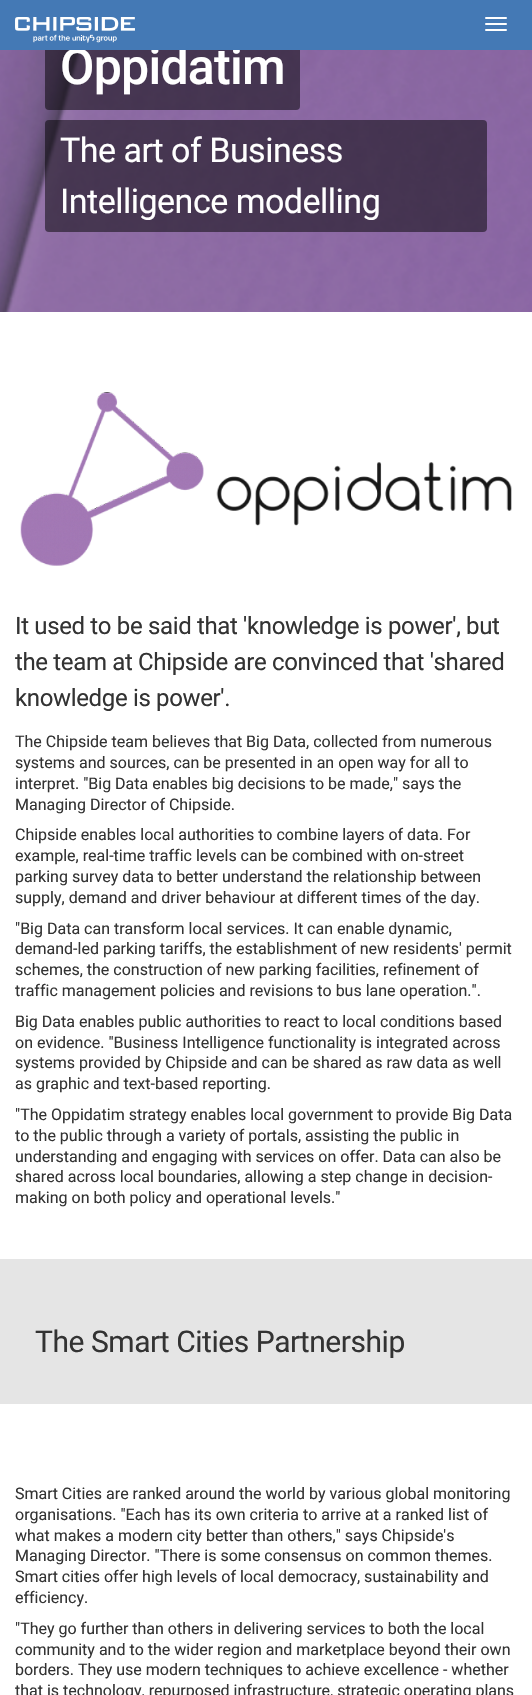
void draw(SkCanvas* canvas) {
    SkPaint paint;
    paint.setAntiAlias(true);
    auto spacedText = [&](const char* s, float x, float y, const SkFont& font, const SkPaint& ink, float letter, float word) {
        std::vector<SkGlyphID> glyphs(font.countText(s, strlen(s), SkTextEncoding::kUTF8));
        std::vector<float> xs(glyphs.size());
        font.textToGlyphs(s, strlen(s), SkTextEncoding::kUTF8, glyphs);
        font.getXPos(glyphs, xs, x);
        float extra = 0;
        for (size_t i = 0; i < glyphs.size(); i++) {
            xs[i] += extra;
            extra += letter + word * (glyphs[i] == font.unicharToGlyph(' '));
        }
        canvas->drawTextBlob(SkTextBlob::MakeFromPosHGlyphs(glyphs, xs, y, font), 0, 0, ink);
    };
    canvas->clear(0xFFFFFFFF);
    canvas->drawImageRect(SkImages::DeferredFromEncodedData(SkData::MakeFromFileName("img2.png")), SkRect::MakeXYWH(0, 50, 532, 262), SkSamplingOptions());
    paint.setColor(0x80000000);
    canvas->drawRoundRect(SkRect::MakeXYWH(45, 25, 255, 85), 4, 4, paint);
    SkFont font1(fontMgr->matchFamilyStyle("Roboto", SkFontStyle(500, SkFontStyle::kNormal_Width, SkFontStyle::kUpright_Slant)), 50);
    font1.setSubpixel(true);
    paint.setColor(0xFFFFFFFF);
    spacedText("Oppidatim", 60, 84, font1, paint, -0.75f, 0);
    paint.setColor(0xFF4479B5);
    canvas->drawRect(SkRect::MakeXYWH(0, 0, 532, 50), paint);
    canvas->drawImageRect(SkImages::DeferredFromEncodedData(SkData::MakeFromFileName("img1.png")), SkRect::MakeXYWH(15, 17, 120, 26), SkSamplingOptions());
    paint.setColor(0xFFFFFFFF);
    canvas->drawRoundRect(SkRect::MakeXYWH(485, 17, 22, 2), 1, 1, paint);
    canvas->drawRoundRect(SkRect::MakeXYWH(485, 23, 22, 2), 1, 1, paint);
    canvas->drawRoundRect(SkRect::MakeXYWH(485, 29, 22, 2), 1, 1, paint);
    paint.setColor(0x80000000);
    canvas->drawRoundRect(SkRect::MakeXYWH(45, 120, 442, 112), 4, 4, paint);
    SkFont font2(fontMgr->matchFamilyStyle("Roboto", SkFontStyle::Normal()), 34);
    font2.setSubpixel(true);
    paint.setColor(0xFFFFFFFF);
    spacedText("The art of Business", 60, 162, font2, paint, -0.5f, 0);
    spacedText("Intelligence modelling", 60, 213, font2, paint, -0.5f, 0);
    canvas->drawImageRect(SkImages::DeferredFromEncodedData(SkData::MakeFromFileName("img3.png")), SkRect::MakeXYWH(20, 392, 492, 174), SkSamplingOptions());
    SkFont font3(fontMgr->matchFamilyStyle("Roboto", SkFontStyle::Normal()), 24);
    font3.setSubpixel(true);
    paint.setColor(0xFF333333);
    spacedText("It used to be said that 'knowledge is power', but", 15, 634, font3, paint, -0.35f, 0);
    spacedText("the team at Chipside are convinced that 'shared", 15, 670, font3, paint, -0.35f, 0);
    spacedText("knowledge is power'.", 15, 706, font3, paint, -0.35f, 0);
    SkFont font4(fontMgr->matchFamilyStyle("Roboto", SkFontStyle::Normal()), 16);
    font4.setSubpixel(true);
    canvas->drawString("The Chipside team believes that Big Data, collected from numerous", 15, 747, font4, paint);
    canvas->drawString("systems and sources, can be presented in an open way for all to", 15, 768, font4, paint);
    canvas->drawString("interpret. \"Big Data enables big decisions to be made,\" says the", 15, 789, font4, paint);
    canvas->drawString("Managing Director of Chipside.", 15, 810, font4, paint);
    canvas->drawString("Chipside enables local authorities to combine layers of data. For", 15, 840, font4, paint);
    canvas->drawString("example, real-time traffic levels can be combined with on-street", 15, 861, font4, paint);
    canvas->drawString("parking survey data to better understand the relationship between", 15, 882, font4, paint);
    canvas->drawString("supply, demand and driver behaviour at different times of the day.", 15, 903, font4, paint);
    canvas->drawString("\"Big Data can transform local services. It can enable dynamic,", 15, 934, font4, paint);
    canvas->drawString("demand-led parking tariffs, the establishment of new residents' permit", 15, 954, font4, paint);
    canvas->drawString("schemes, the construction of new parking facilities, refinement of", 15, 975, font4, paint);
    canvas->drawString("traffic management policies and revisions to bus lane operation.\".", 15, 996, font4, paint);
    canvas->drawString("Big Data enables public authorities to react to local conditions based", 15, 1027, font4, paint);
    canvas->drawString("on evidence. \"Business Intelligence functionality is integrated across", 15, 1048, font4, paint);
    canvas->drawString("systems provided by Chipside and can be shared as raw data as well", 15, 1068, font4, paint);
    canvas->drawString("as graphic and text-based reporting.", 15, 1089, font4, paint);
    canvas->drawString("\"The Oppidatim strategy enables local government to provide Big Data", 15, 1120, font4, paint);
    canvas->drawString("to the public through a variety of portals, assisting the public in", 15, 1141, font4, paint);
    canvas->drawString("understanding and engaging with services on offer. Data can also be", 15, 1162, font4, paint);
    canvas->drawString("shared across local boundaries, allowing a step change in decision-", 15, 1182, font4, paint);
    canvas->drawString("making on both policy and operational levels.\"", 15, 1203, font4, paint);
    paint.setColor(0xFFE5E5E5);
    canvas->drawRect(SkRect::MakeXYWH(0, 1259, 532, 145), paint);
    SkFont font5(fontMgr->matchFamilyStyle("Roboto", SkFontStyle::Normal()), 30);
    font5.setSubpixel(true);
    paint.setColor(0xFF333333);
    spacedText("The Smart Cities Partnership", 35, 1352, font5, paint, -0.45f, 0);
    canvas->drawString("Smart Cities are ranked around the world by various global monitoring", 15, 1499, font4, paint);
    canvas->drawString("organisations. \"Each has its own criteria to arrive at a ranked list of", 15, 1520, font4, paint);
    canvas->drawString("what makes a modern city better than others,\" says Chipside's", 15, 1541, font4, paint);
    canvas->drawString("Managing Director. \"There is some consensus on common themes.", 15, 1561, font4, paint);
    canvas->drawString("Smart cities offer high levels of local democracy, sustainability and", 15, 1582, font4, paint);
    canvas->drawString("efficiency.", 15, 1603, font4, paint);
    canvas->drawString("\"They go further than others in delivering services to both the local", 15, 1634, font4, paint);
    canvas->drawString("community and to the wider region and marketplace beyond their own", 15, 1655, font4, paint);
    canvas->drawString("borders. They use modern techniques to achieve excellence - whether", 15, 1675, font4, paint);
    canvas->drawString("that is technology, repurposed infrastructure, strategic operating plans", 15, 1696, font4, paint);
}
